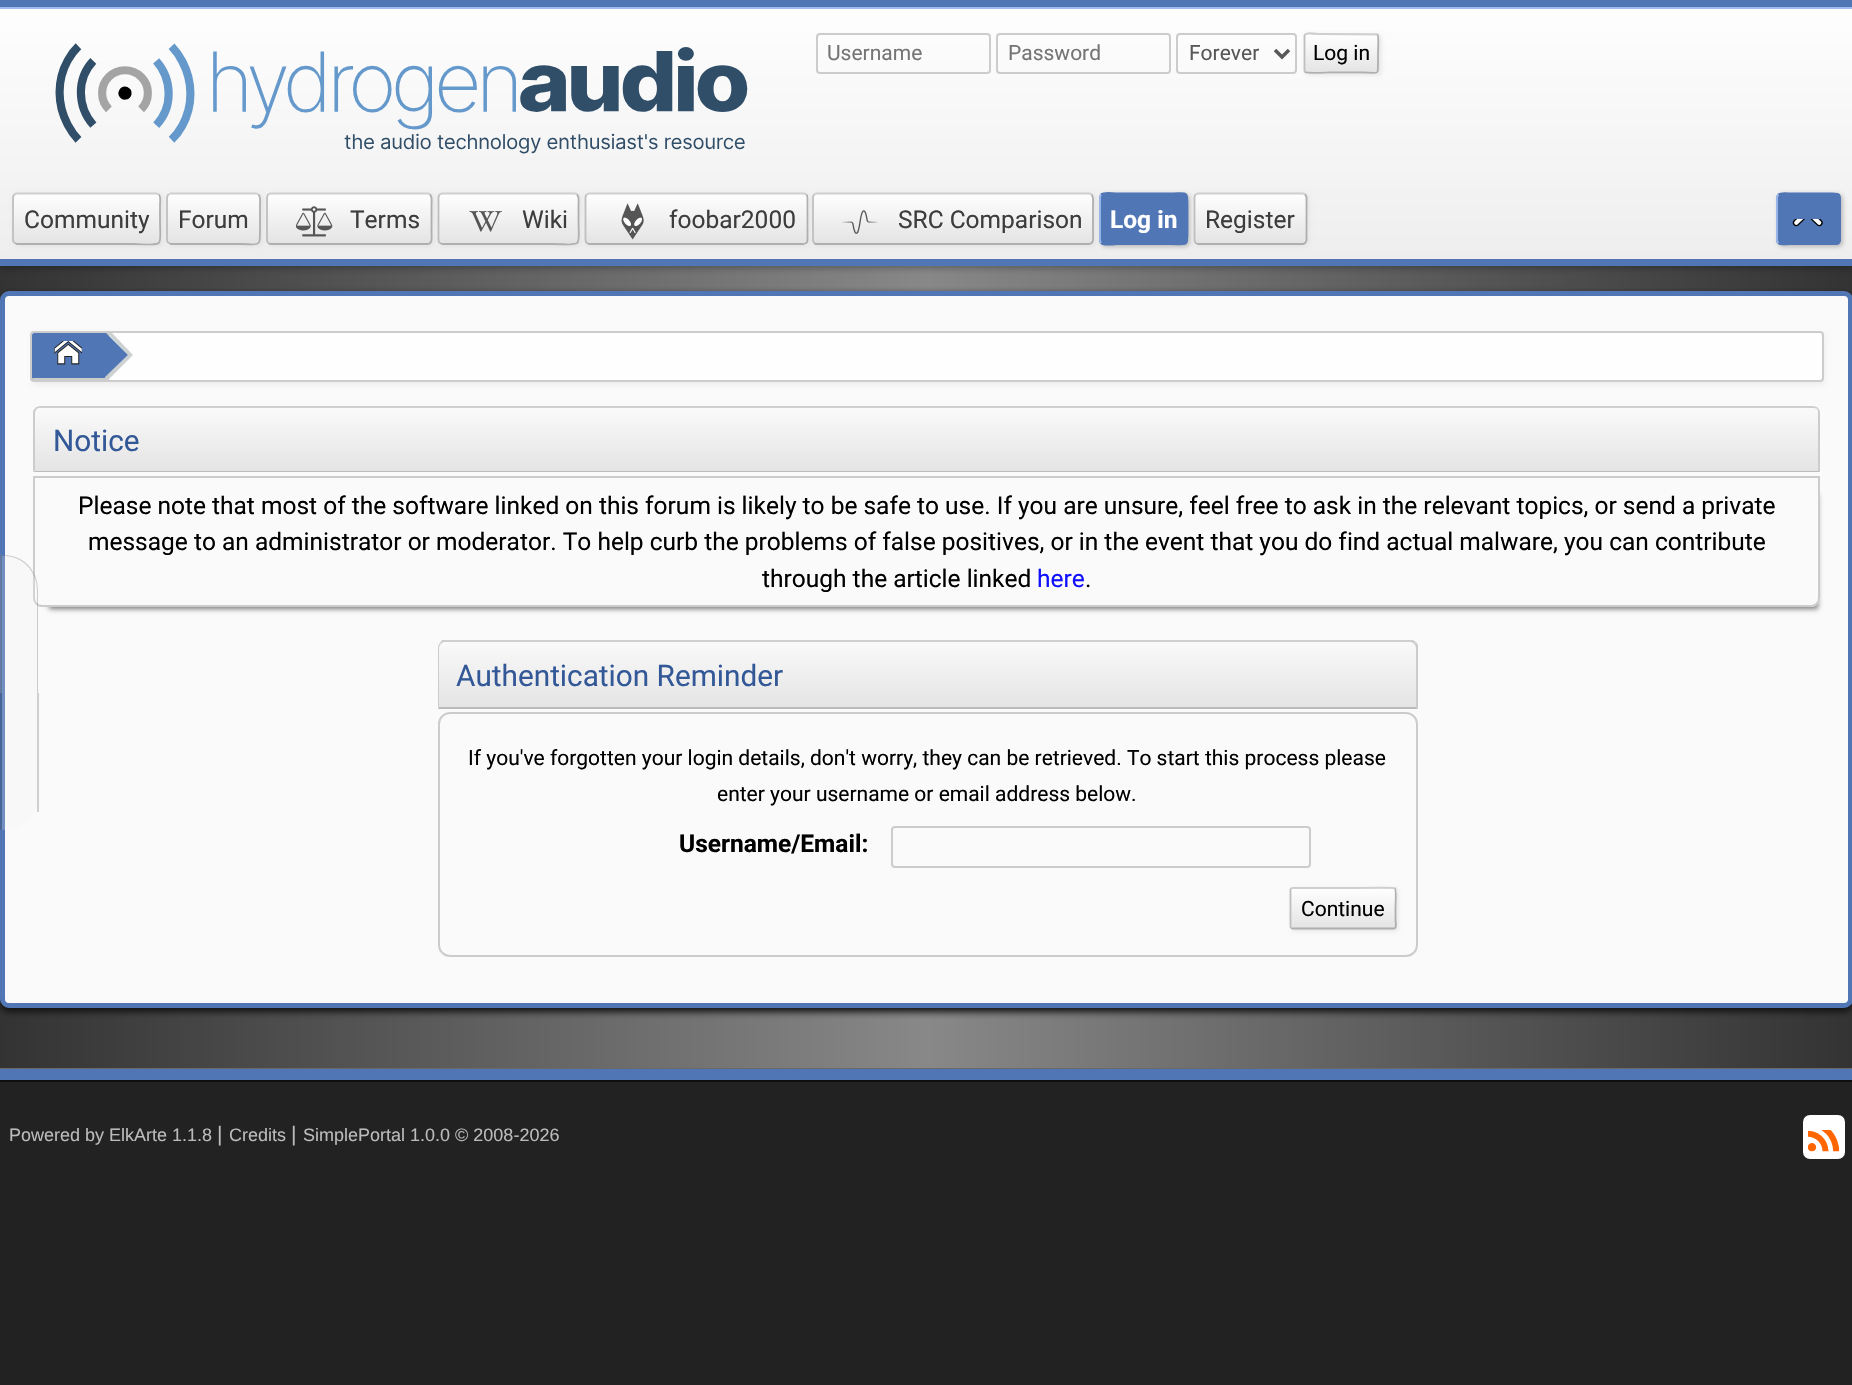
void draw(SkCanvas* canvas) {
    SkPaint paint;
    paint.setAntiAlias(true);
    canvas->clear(0xFF222222);
    {
        const SkColor colors[] = {0xFF333333, 0xFF888888, 0xFF333333};
        const float stops[] = {0, 0.5f, 1};
        const SkPoint ends[] = {{0, 597}, {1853, 597}};
        paint.setShader(SkGradientShader::MakeLinear(ends, colors, stops, 3, SkTileMode::kClamp));
        paint.setAlpha(255);
    }
    canvas->drawRect(SkRect::MakeXYWH(0, 266, 1852, 802), paint);
    paint.setShader(nullptr);
    paint.setColor(0x4D000000);
    paint.setMaskFilter(SkMaskFilter::MakeBlur(kNormal_SkBlurStyle, 3.5f));
    canvas->drawRect(SkRect::MakeXYWH(0, 2, 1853, 266), paint);
    paint.setMaskFilter(nullptr);
    {
        const SkColor colors[] = {0xFFFEFEFE, 0xFFEEEEEE};
        const float stops[] = {0, 1};
        const SkPoint ends[] = {{927, 7}, {927, 259}};
        paint.setShader(SkGradientShader::MakeLinear(ends, colors, stops, 2, SkTileMode::kClamp));
        paint.setAlpha(255);
    }
    canvas->drawRect(SkRect::MakeXYWH(0, 9, 1852, 250), paint);
    paint.setShader(nullptr);
    paint.setColor(0xFFA0BCEF);
    canvas->drawRect(SkRect::MakeXYWH(0, 7, 1852, 2), paint);
    paint.setColor(0xFF5176B5);
    canvas->drawRect(SkRect::MakeXYWH(0, 0, 1852, 7), paint);
    canvas->drawRect(SkRect::MakeXYWH(0, 259, 1852, 7), paint);
    canvas->drawImageRect(SkImages::DeferredFromEncodedData(SkData::MakeFromFileName("img1.png")), SkRect::MakeXYWH(55, 43, 693, 111), SkSamplingOptions());
    paint.setStyle(SkPaint::kStroke_Style);
    paint.setStrokeWidth(2);
    paint.setColor(0xFFCCCCCC);
    canvas->drawRoundRect(SkRect::MakeXYWH(817, 34, 173, 39), 3, 3, paint);
    SkFont font1(fontMgr->matchFamilyStyle("Roboto", SkFontStyle::Normal()), 21);
    font1.setSubpixel(true);
    paint.setStyle(SkPaint::kFill_Style);
    paint.setColor(0xFF757575);
    canvas->drawString("Username", 827, 60, font1, paint);
    paint.setStyle(SkPaint::kStroke_Style);
    paint.setColor(0xFFCCCCCC);
    canvas->drawRoundRect(SkRect::MakeXYWH(997, 34, 173, 39), 3, 3, paint);
    paint.setStyle(SkPaint::kFill_Style);
    paint.setColor(0xFF757575);
    canvas->drawString("Password", 1008, 60, font1, paint);
    paint.setStyle(SkPaint::kStroke_Style);
    paint.setColor(0xFFCCCCCC);
    canvas->drawRoundRect(SkRect::MakeXYWH(1177, 34, 119, 39), 3, 3, paint);
    paint.setStrokeWidth(3.5f);
    paint.setColor(0xFF585858);
    canvas->drawPath(SkPathBuilder().moveTo(1275, 50).lineTo(1282, 57).lineTo(1289, 50).detach(), paint);
    paint.setStyle(SkPaint::kFill_Style);
    canvas->drawString("Forever", 1189, 60, font1, paint);
    paint.setColor(0xFFE5E5E5);
    paint.setMaskFilter(SkMaskFilter::MakeBlur(kNormal_SkBlurStyle, 2));
    canvas->drawRoundRect(SkRect::MakeXYWH(1306, 35, 75, 40), 2.5f, 2.5f, paint);
    paint.setMaskFilter(nullptr);
    canvas->save();
    canvas->clipPath(SkPathBuilder().moveTo(1306.5f, 33).lineTo(1376.5f, 33).cubicTo(1378, 33, 1379, 34, 1379, 35.5f).lineTo(1379, 71.5f).cubicTo(1379, 73, 1378, 74, 1376.5f, 74).lineTo(1306.5f, 74).cubicTo(1305, 74, 1304, 73, 1304, 71.5f).lineTo(1304, 35.5f).cubicTo(1304, 34, 1305, 33, 1306.5f, 33).close().detach(), true);
    {
        const SkColor colors[] = {0xFFFEFEFE, 0xFFE4E4E4};
        const float stops[] = {0, 1};
        const SkPoint ends[] = {{1341, -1.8f}, {1341, 35}};
        paint.setShader(SkGradientShader::MakeLinear(ends, colors, stops, 2, SkTileMode::kClamp));
        paint.setAlpha(255);
    }
    canvas->drawRect(SkRect::MakeXYWH(1304, 33, 75, 2), paint);
    canvas->restore();
    {
        const SkColor colors[] = {0xFFFEFEFE, 0xFFE4E4E4};
        const float stops[] = {0, 1};
        const SkPoint ends[] = {{1341, 35}, {1341, 72}};
        paint.setShader(SkGradientShader::MakeLinear(ends, colors, stops, 2, SkTileMode::kClamp));
        paint.setAlpha(255);
    }
    canvas->drawRect(SkRect::MakeXYWH(1305, 35, 74, 37), paint);
    canvas->save();
    canvas->clipPath(SkPathBuilder().moveTo(1306.5f, 33).lineTo(1376.5f, 33).cubicTo(1378, 33, 1379, 34, 1379, 35.5f).lineTo(1379, 71.5f).cubicTo(1379, 73, 1378, 74, 1376.5f, 74).lineTo(1306.5f, 74).cubicTo(1305, 74, 1304, 73, 1304, 71.5f).lineTo(1304, 35.5f).cubicTo(1304, 34, 1305, 33, 1306.5f, 33).close().detach(), true);
    {
        const SkColor colors[] = {0xFFFEFEFE, 0xFFE4E4E4};
        const float stops[] = {0, 1};
        const SkPoint ends[] = {{1341, 72}, {1341, 109}};
        paint.setShader(SkGradientShader::MakeLinear(ends, colors, stops, 2, SkTileMode::kClamp));
        paint.setAlpha(255);
    }
    canvas->drawRect(SkRect::MakeXYWH(1304, 72, 75, 2), paint);
    canvas->restore();
    paint.setShader(nullptr);
    paint.setColor(0xFFE5E5E5);
    canvas->drawPath(SkPathBuilder().moveTo(1306, 70).cubicTo(1306, 71, 1306, 72, 1307, 72).lineTo(1364, 72).cubicTo(1373, 72, 1377, 75, 1377, 69).lineTo(1376, 70).close().detach(), paint);
    paint.setStyle(SkPaint::kStroke_Style);
    paint.setStrokeWidth(1.8f);
    paint.setColor(0xFFCFCFCF);
    canvas->drawPath(SkPathBuilder().moveTo(1305, 34.5f).cubicTo(1308, 31.5f, 1313.5f, 34, 1318, 34).lineTo(1377.5f, 34.5f).detach(), paint);
    paint.setColor(0xFFAFAFAF);
    canvas->drawPath(SkPathBuilder().moveTo(1377.5f, 34.5f).cubicTo(1379, 36, 1378, 50.5f, 1378, 53.5f).lineTo(1378, 65).cubicTo(1378, 76, 1378, 72.5f, 1364.5f, 72.5f).lineTo(1329.5f, 72.5f).cubicTo(1327.5f, 72.5f, 1306.5f, 73.5f, 1305, 72).detach(), paint);
    paint.setColor(0xFFBFBFBF);
    canvas->drawPath(SkPathBuilder().moveTo(1305, 72).lineTo(1304.5f, 71).lineTo(1304.5f, 36).lineTo(1305, 34.5f).detach(), paint);
    paint.setStyle(SkPaint::kFill_Style);
    paint.setColor(0xFF000000);
    canvas->drawString("Log in", 1313, 60, font1, paint);
    paint.setColor(0xFFE4E4E4);
    paint.setMaskFilter(SkMaskFilter::MakeBlur(kNormal_SkBlurStyle, 2));
    canvas->drawRoundRect(SkRect::MakeXYWH(14, 194, 149, 53), 5, 5, paint);
    paint.setMaskFilter(nullptr);
    canvas->save();
    canvas->clipPath(SkPathBuilder().moveTo(17, 193).lineTo(156, 193).cubicTo(159, 193, 161, 195, 161, 198).lineTo(161, 240).cubicTo(161, 243, 159, 245, 156, 245).lineTo(17, 245).cubicTo(14, 245, 12, 243, 12, 240).lineTo(12, 198).cubicTo(12, 195, 14, 193, 17, 193).close().detach(), true);
    {
        const SkColor colors[] = {0xFFFEFEFE, 0xFFE4E4E4};
        const float stops[] = {0, 1};
        const SkPoint ends[] = {{87, 194}, {87, 243}};
        paint.setShader(SkGradientShader::MakeLinear(ends, colors, stops, 2, SkTileMode::kClamp));
        paint.setAlpha(255);
    }
    canvas->drawRect(SkRect::MakeXYWH(12, 194, 149, 49), paint);
    {
        const SkColor colors[] = {0xFFFEFEFE, 0xFFE4E4E4};
        const float stops[] = {0, 1};
        const SkPoint ends[] = {{87, 243}, {87, 292}};
        paint.setShader(SkGradientShader::MakeLinear(ends, colors, stops, 2, SkTileMode::kClamp));
        paint.setAlpha(255);
    }
    canvas->drawRect(SkRect::MakeXYWH(12, 243, 149, 2), paint);
    canvas->restore();
    paint.setStyle(SkPaint::kStroke_Style);
    paint.setShader(nullptr);
    paint.setColor(0xFFCFCFCF);
    canvas->drawPath(SkPathBuilder().moveTo(14.5f, 194.5f).cubicTo(15, 194, 16, 193.5f, 17, 193.5f).lineTo(156, 193.5f).cubicTo(157, 193.5f, 158, 194, 159, 194.5f).detach(), paint);
    paint.setColor(0xFFAFAFAF);
    canvas->drawPath(SkPathBuilder().moveTo(159, 194.5f).cubicTo(161, 197, 160, 202.5f, 160, 204.5f).lineTo(160, 219).cubicTo(160, 250, 165.5f, 244, 133, 244).lineTo(17, 244).lineTo(14.5f, 243).detach(), paint);
    paint.setColor(0xFFBFBFBF);
    canvas->drawPath(SkPathBuilder().moveTo(14.5f, 243).cubicTo(13.5f, 242, 13, 241, 13, 240).lineTo(13, 197.5f).cubicTo(13, 196.5f, 13.5f, 195.5f, 14.5f, 194.5f).detach(), paint);
    SkFont font2(fontMgr->matchFamilyStyle("Roboto", SkFontStyle::Normal()), 24.5f);
    font2.setSubpixel(true);
    paint.setStyle(SkPaint::kFill_Style);
    paint.setColor(0xFF3D3D3D);
    canvas->drawString("Community", 24, 228, font2, paint);
    paint.setColor(0xFFE4E4E4);
    paint.setMaskFilter(SkMaskFilter::MakeBlur(kNormal_SkBlurStyle, 2));
    canvas->drawRoundRect(SkRect::MakeXYWH(168, 194, 95, 53), 5, 5, paint);
    paint.setMaskFilter(nullptr);
    canvas->save();
    canvas->clipPath(SkPathBuilder().moveTo(171, 193).lineTo(256, 193).cubicTo(259, 193, 261, 195, 261, 198).lineTo(261, 240).cubicTo(261, 243, 259, 245, 256, 245).lineTo(171, 245).cubicTo(168, 245, 166, 243, 166, 240).lineTo(166, 198).cubicTo(166, 195, 168, 193, 171, 193).close().detach(), true);
    {
        const SkColor colors[] = {0xFFFEFEFE, 0xFFE4E4E4};
        const float stops[] = {0, 1};
        const SkPoint ends[] = {{214, 194}, {214, 243}};
        paint.setShader(SkGradientShader::MakeLinear(ends, colors, stops, 2, SkTileMode::kClamp));
        paint.setAlpha(255);
    }
    canvas->drawRect(SkRect::MakeXYWH(166, 194, 95, 49), paint);
    {
        const SkColor colors[] = {0xFFFEFEFE, 0xFFE4E4E4};
        const float stops[] = {0, 1};
        const SkPoint ends[] = {{214, 243}, {214, 292}};
        paint.setShader(SkGradientShader::MakeLinear(ends, colors, stops, 2, SkTileMode::kClamp));
        paint.setAlpha(255);
    }
    canvas->drawRect(SkRect::MakeXYWH(166, 243, 95, 2), paint);
    canvas->restore();
    paint.setStyle(SkPaint::kStroke_Style);
    paint.setShader(nullptr);
    paint.setColor(0xFFCFCFCF);
    canvas->drawPath(SkPathBuilder().moveTo(168.5f, 194.5f).lineTo(171, 193.5f).lineTo(256, 193.5f).lineTo(258.5f, 194.5f).detach(), paint);
    paint.setColor(0xFFAFAFAF);
    canvas->drawPath(SkPathBuilder().moveTo(258.5f, 194.5f).cubicTo(261, 197, 260, 202.5f, 260, 204.5f).lineTo(260, 233).cubicTo(260, 247.5f, 259, 244, 241.5f, 244).lineTo(171, 244).lineTo(168.5f, 243).detach(), paint);
    paint.setColor(0xFFBFBFBF);
    canvas->drawPath(SkPathBuilder().moveTo(168.5f, 243).cubicTo(167.5f, 242, 167, 241, 167, 240).lineTo(167, 197.5f).cubicTo(167, 196.5f, 167.5f, 195.5f, 168.5f, 194.5f).detach(), paint);
    paint.setStyle(SkPaint::kFill_Style);
    paint.setColor(0xFF3D3D3D);
    canvas->drawString("Forum", 178, 228, font2, paint);
    paint.setColor(0xFFE4E4E4);
    paint.setMaskFilter(SkMaskFilter::MakeBlur(kNormal_SkBlurStyle, 2));
    canvas->drawRoundRect(SkRect::MakeXYWH(268, 194, 166, 53), 5, 5, paint);
    paint.setMaskFilter(nullptr);
    canvas->save();
    canvas->clipPath(SkPathBuilder().moveTo(271, 193).lineTo(427, 193).cubicTo(430, 193, 432, 195, 432, 198).lineTo(432, 240).cubicTo(432, 243, 430, 245, 427, 245).lineTo(271, 245).cubicTo(268, 245, 266, 243, 266, 240).lineTo(266, 198).cubicTo(266, 195, 268, 193, 271, 193).close().detach(), true);
    {
        const SkColor colors[] = {0xFFFEFEFE, 0xFFE4E4E4};
        const float stops[] = {0, 1};
        const SkPoint ends[] = {{349, 194}, {349, 243}};
        paint.setShader(SkGradientShader::MakeLinear(ends, colors, stops, 2, SkTileMode::kClamp));
        paint.setAlpha(255);
    }
    canvas->drawRect(SkRect::MakeXYWH(266, 194, 166, 49), paint);
    {
        const SkColor colors[] = {0xFFFEFEFE, 0xFFE4E4E4};
        const float stops[] = {0, 1};
        const SkPoint ends[] = {{349, 243}, {349, 292}};
        paint.setShader(SkGradientShader::MakeLinear(ends, colors, stops, 2, SkTileMode::kClamp));
        paint.setAlpha(255);
    }
    canvas->drawRect(SkRect::MakeXYWH(266, 243, 166, 2), paint);
    canvas->restore();
    paint.setStyle(SkPaint::kStroke_Style);
    paint.setShader(nullptr);
    paint.setColor(0xFFCFCFCF);
    canvas->drawPath(SkPathBuilder().moveTo(268, 194.5f).cubicTo(269, 194, 270, 193.5f, 271, 193.5f).lineTo(427.5f, 193.5f).cubicTo(428.5f, 193.5f, 429.5f, 194, 430, 194.5f).detach(), paint);
    paint.setColor(0xFFAFAFAF);
    canvas->drawPath(SkPathBuilder().moveTo(430, 194.5f).cubicTo(432.5f, 197, 431.5f, 202.5f, 431.5f, 204.5f).lineTo(431.5f, 233).cubicTo(431.5f, 236, 433, 244, 427.5f, 244).lineTo(270, 244).lineTo(268, 243).detach(), paint);
    paint.setColor(0xFFBFBFBF);
    canvas->drawPath(SkPathBuilder().moveTo(268, 243).cubicTo(267.5f, 242, 267, 241, 267, 240).lineTo(267, 197.5f).cubicTo(267, 196.5f, 267.5f, 195.5f, 268, 194.5f).detach(), paint);
    canvas->drawImageRect(SkImages::DeferredFromEncodedData(SkData::MakeFromFileName("img2.png")), SkRect::MakeXYWH(296, 206, 37, 31), SkSamplingOptions());
    paint.setStyle(SkPaint::kFill_Style);
    paint.setColor(0xFF3D3D3D);
    canvas->drawString("Terms", 350, 228, font2, paint);
    paint.setColor(0xFFE4E4E4);
    paint.setMaskFilter(SkMaskFilter::MakeBlur(kNormal_SkBlurStyle, 2));
    canvas->drawRoundRect(SkRect::MakeXYWH(439, 194, 142, 53), 5, 5, paint);
    paint.setMaskFilter(nullptr);
    canvas->save();
    canvas->clipPath(SkPathBuilder().moveTo(443, 193).lineTo(574, 193).cubicTo(577, 193, 579, 195, 579, 198).lineTo(579, 240).cubicTo(579, 243, 577, 245, 574, 245).lineTo(443, 245).cubicTo(440, 245, 438, 243, 438, 240).lineTo(438, 198).cubicTo(438, 195, 440, 193, 443, 193).close().detach(), true);
    {
        const SkColor colors[] = {0xFFFEFEFE, 0xFFE4E4E4};
        const float stops[] = {0, 1};
        const SkPoint ends[] = {{508, 194}, {508, 243}};
        paint.setShader(SkGradientShader::MakeLinear(ends, colors, stops, 2, SkTileMode::kClamp));
        paint.setAlpha(255);
    }
    canvas->drawRect(SkRect::MakeXYWH(438, 194, 141, 49), paint);
    {
        const SkColor colors[] = {0xFFFEFEFE, 0xFFE4E4E4};
        const float stops[] = {0, 1};
        const SkPoint ends[] = {{508, 243}, {508, 292}};
        paint.setShader(SkGradientShader::MakeLinear(ends, colors, stops, 2, SkTileMode::kClamp));
        paint.setAlpha(255);
    }
    canvas->drawRect(SkRect::MakeXYWH(438, 243, 141, 2), paint);
    canvas->restore();
    paint.setStyle(SkPaint::kStroke_Style);
    paint.setShader(nullptr);
    paint.setColor(0xFFCFCFCF);
    canvas->drawPath(SkPathBuilder().moveTo(439.5f, 194.5f).cubicTo(440.5f, 194, 441.5f, 193.5f, 442.5f, 193.5f).lineTo(574.5f, 193.5f).cubicTo(575.5f, 193.5f, 576.5f, 194, 577, 194.5f).detach(), paint);
    paint.setColor(0xFFAFAFAF);
    canvas->drawPath(SkPathBuilder().moveTo(577, 194.5f).cubicTo(579.5f, 197, 578.5f, 202.5f, 578.5f, 204.5f).lineTo(578.5f, 219).cubicTo(578.5f, 249.5f, 584, 244, 552.5f, 244).lineTo(442.5f, 244).lineTo(439.5f, 243).detach(), paint);
    paint.setColor(0xFFBFBFBF);
    canvas->drawPath(SkPathBuilder().moveTo(439.5f, 243).cubicTo(439, 242, 438.5f, 241, 438.5f, 240).lineTo(438.5f, 197.5f).cubicTo(438.5f, 196.5f, 439, 195.5f, 439.5f, 194.5f).detach(), paint);
    canvas->drawImageRect(SkImages::DeferredFromEncodedData(SkData::MakeFromFileName("img3.png")), SkRect::MakeXYWH(469, 211, 33, 21), SkSamplingOptions());
    paint.setStyle(SkPaint::kFill_Style);
    paint.setColor(0xFF3D3D3D);
    canvas->drawString("Wiki", 522, 228, font2, paint);
    paint.setColor(0xFFE4E4E4);
    paint.setMaskFilter(SkMaskFilter::MakeBlur(kNormal_SkBlurStyle, 2));
    canvas->drawRoundRect(SkRect::MakeXYWH(586, 194, 224, 53), 5, 5, paint);
    paint.setMaskFilter(nullptr);
    canvas->save();
    canvas->clipPath(SkPathBuilder().moveTo(590, 193).lineTo(804, 193).cubicTo(807, 193, 809, 195, 809, 198).lineTo(809, 240).cubicTo(809, 243, 807, 245, 804, 245).lineTo(590, 245).cubicTo(587, 245, 585, 243, 585, 240).lineTo(585, 198).cubicTo(585, 195, 587, 193, 590, 193).close().detach(), true);
    {
        const SkColor colors[] = {0xFFFEFEFE, 0xFFE4E4E4};
        const float stops[] = {0, 1};
        const SkPoint ends[] = {{697, 194}, {697, 243}};
        paint.setShader(SkGradientShader::MakeLinear(ends, colors, stops, 2, SkTileMode::kClamp));
        paint.setAlpha(255);
    }
    canvas->drawRect(SkRect::MakeXYWH(585, 194, 224, 49), paint);
    {
        const SkColor colors[] = {0xFFFEFEFE, 0xFFE4E4E4};
        const float stops[] = {0, 1};
        const SkPoint ends[] = {{697, 243}, {697, 292}};
        paint.setShader(SkGradientShader::MakeLinear(ends, colors, stops, 2, SkTileMode::kClamp));
        paint.setAlpha(255);
    }
    canvas->drawRect(SkRect::MakeXYWH(585, 243, 224, 2), paint);
    canvas->restore();
    paint.setStyle(SkPaint::kStroke_Style);
    paint.setShader(nullptr);
    paint.setColor(0xFFCFCFCF);
    canvas->drawPath(SkPathBuilder().moveTo(586.5f, 194.5f).cubicTo(587.5f, 194, 588.5f, 193.5f, 589.5f, 193.5f).lineTo(803.5f, 193.5f).cubicTo(804.5f, 193.5f, 805.5f, 194, 806.5f, 194.5f).detach(), paint);
    paint.setColor(0xFFAFAFAF);
    canvas->drawPath(SkPathBuilder().moveTo(806.5f, 194.5f).cubicTo(807, 195.5f, 807.5f, 196.5f, 807.5f, 197.5f).lineTo(807.5f, 240).cubicTo(807.5f, 241, 807, 242, 806.5f, 243).cubicTo(805.5f, 243.5f, 804.5f, 244, 803.5f, 244).lineTo(589.5f, 244).cubicTo(588.5f, 244, 587.5f, 243.5f, 586.5f, 243).detach(), paint);
    paint.setColor(0xFFBFBFBF);
    canvas->drawPath(SkPathBuilder().moveTo(586.5f, 243).cubicTo(586, 242, 585.5f, 241, 585.5f, 240).lineTo(585.5f, 197.5f).cubicTo(585.5f, 196.5f, 586, 195.5f, 586.5f, 194.5f).detach(), paint);
    canvas->drawImageRect(SkImages::DeferredFromEncodedData(SkData::MakeFromFileName("img4.png")), SkRect::MakeXYWH(621, 203, 23, 37), SkSamplingOptions());
    paint.setStyle(SkPaint::kFill_Style);
    paint.setColor(0xFF3D3D3D);
    canvas->drawString("foobar2000", 669, 228, font2, paint);
    paint.setColor(0xFFE4E4E4);
    paint.setMaskFilter(SkMaskFilter::MakeBlur(kNormal_SkBlurStyle, 2));
    canvas->drawRoundRect(SkRect::MakeXYWH(814, 194, 282, 53), 5, 5, paint);
    paint.setMaskFilter(nullptr);
    canvas->save();
    canvas->clipPath(SkPathBuilder().moveTo(817, 193).lineTo(1089, 193).cubicTo(1092, 193, 1094, 195, 1094, 198).lineTo(1094, 240).cubicTo(1094, 243, 1092, 245, 1089, 245).lineTo(817, 245).cubicTo(814, 245, 812, 243, 812, 240).lineTo(812, 198).cubicTo(812, 195, 814, 193, 817, 193).close().detach(), true);
    {
        const SkColor colors[] = {0xFFFEFEFE, 0xFFE4E4E4};
        const float stops[] = {0, 1};
        const SkPoint ends[] = {{953, 194}, {953, 243}};
        paint.setShader(SkGradientShader::MakeLinear(ends, colors, stops, 2, SkTileMode::kClamp));
        paint.setAlpha(255);
    }
    canvas->drawRect(SkRect::MakeXYWH(812, 194, 282, 49), paint);
    {
        const SkColor colors[] = {0xFFFEFEFE, 0xFFE4E4E4};
        const float stops[] = {0, 1};
        const SkPoint ends[] = {{953, 243}, {953, 292}};
        paint.setShader(SkGradientShader::MakeLinear(ends, colors, stops, 2, SkTileMode::kClamp));
        paint.setAlpha(255);
    }
    canvas->drawRect(SkRect::MakeXYWH(812, 243, 282, 2), paint);
    canvas->restore();
    paint.setStyle(SkPaint::kStroke_Style);
    paint.setShader(nullptr);
    paint.setColor(0xFFCFCFCF);
    canvas->drawPath(SkPathBuilder().moveTo(814, 194.5f).cubicTo(815, 194, 816, 193.5f, 817, 193.5f).lineTo(1089, 193.5f).cubicTo(1090, 193.5f, 1091, 194, 1091.5f, 194.5f).detach(), paint);
    paint.setColor(0xFFAFAFAF);
    canvas->drawPath(SkPathBuilder().moveTo(1091.5f, 194.5f).cubicTo(1094, 197, 1093, 202.5f, 1093, 204.5f).lineTo(1093, 233).cubicTo(1093, 236, 1094.5f, 244, 1089, 244).lineTo(815.5f, 244).lineTo(814, 243).detach(), paint);
    paint.setColor(0xFFBFBFBF);
    canvas->drawPath(SkPathBuilder().moveTo(814, 243).cubicTo(813.5f, 242, 813, 241, 813, 240).lineTo(813, 197.5f).cubicTo(813, 196.5f, 813.5f, 195.5f, 814, 194.5f).detach(), paint);
    canvas->drawImageRect(SkImages::DeferredFromEncodedData(SkData::MakeFromFileName("img5.png")), SkRect::MakeXYWH(842, 210, 36, 24), SkSamplingOptions());
    paint.setStyle(SkPaint::kFill_Style);
    paint.setColor(0xFF3D3D3D);
    canvas->drawString("SRC Comparison", 898, 228, font2, paint);
    paint.setColor(0xFFBBBBBB);
    paint.setMaskFilter(SkMaskFilter::MakeBlur(kNormal_SkBlurStyle, 2));
    canvas->drawRoundRect(SkRect::MakeXYWH(1101, 194, 89, 53), 5, 5, paint);
    paint.setMaskFilter(nullptr);
    paint.setColor(0xFF5176B5);
    canvas->drawRoundRect(SkRect::MakeXYWH(1099, 193, 89, 52), 5, 5, paint);
    paint.setStyle(SkPaint::kStroke_Style);
    canvas->drawPath(SkPathBuilder().moveTo(1101, 194.5f).cubicTo(1104, 191.5f, 1116.5f, 193.5f, 1117, 193.5f).lineTo(1170, 193.5f).cubicTo(1186.5f, 193.5f, 1187.5f, 190, 1187.5f, 204.5f).lineTo(1187.5f, 233).cubicTo(1187.5f, 247.5f, 1186.5f, 244, 1170, 244).lineTo(1117, 244).cubicTo(1116.5f, 244, 1104, 246, 1101, 243).detach(), paint);
    paint.setColor(0xFFA0BCEF);
    canvas->drawPath(SkPathBuilder().moveTo(1101, 243).cubicTo(1100.5f, 242, 1100, 241, 1100, 240).lineTo(1100, 197.5f).cubicTo(1100, 196.5f, 1100.5f, 195.5f, 1101, 194.5f).detach(), paint);
    SkFont font3(fontMgr->matchFamilyStyle("Roboto", SkFontStyle::Bold()), 24.5f);
    font3.setSubpixel(true);
    paint.setStyle(SkPaint::kFill_Style);
    paint.setColor(0xFFFEFEFE);
    canvas->drawString("Log in", 1110, 228, font3, paint);
    paint.setColor(0xFFE4E4E4);
    paint.setMaskFilter(SkMaskFilter::MakeBlur(kNormal_SkBlurStyle, 2));
    canvas->drawRoundRect(SkRect::MakeXYWH(1195, 194, 114, 53), 5, 5, paint);
    paint.setMaskFilter(nullptr);
    canvas->save();
    canvas->clipPath(SkPathBuilder().moveTo(1199, 193).lineTo(1302, 193).cubicTo(1305, 193, 1307, 195, 1307, 198).lineTo(1307, 240).cubicTo(1307, 243, 1305, 245, 1302, 245).lineTo(1199, 245).cubicTo(1196, 245, 1194, 243, 1194, 240).lineTo(1194, 198).cubicTo(1194, 195, 1196, 193, 1199, 193).close().detach(), true);
    {
        const SkColor colors[] = {0xFFFEFEFE, 0xFFE4E4E4};
        const float stops[] = {0, 1};
        const SkPoint ends[] = {{1250, 194}, {1250, 243}};
        paint.setShader(SkGradientShader::MakeLinear(ends, colors, stops, 2, SkTileMode::kClamp));
        paint.setAlpha(255);
    }
    canvas->drawRect(SkRect::MakeXYWH(1194, 194, 113, 49), paint);
    canvas->restore();
    paint.setStyle(SkPaint::kStroke_Style);
    paint.setShader(nullptr);
    paint.setColor(0xFFCFCFCF);
    canvas->drawPath(SkPathBuilder().moveTo(1195.5f, 194.5f).cubicTo(1196.5f, 194, 1197.5f, 193.5f, 1198.5f, 193.5f).lineTo(1302.5f, 193.5f).cubicTo(1303.5f, 193.5f, 1304.5f, 194, 1305, 194.5f).detach(), paint);
    paint.setColor(0xFFAFAFAF);
    canvas->drawPath(SkPathBuilder().moveTo(1305, 194.5f).cubicTo(1306, 195.5f, 1306.5f, 196.5f, 1306.5f, 197.5f).lineTo(1306.5f, 240).cubicTo(1306.5f, 241, 1306, 242, 1305, 243).cubicTo(1304.5f, 243.5f, 1303.5f, 244, 1302.5f, 244).lineTo(1198.5f, 244).cubicTo(1197.5f, 244, 1196.5f, 243.5f, 1195.5f, 243).detach(), paint);
    paint.setColor(0xFFBFBFBF);
    canvas->drawPath(SkPathBuilder().moveTo(1195.5f, 243).cubicTo(1195, 242, 1194.5f, 241, 1194.5f, 240).lineTo(1194.5f, 197.5f).cubicTo(1194.5f, 196.5f, 1195, 195.5f, 1195.5f, 194.5f).detach(), paint);
    paint.setStyle(SkPaint::kFill_Style);
    paint.setColor(0xFF3D3D3D);
    canvas->drawString("Register", 1205, 228, font2, paint);
    paint.setColor(0xFFBBBBBB);
    paint.setMaskFilter(SkMaskFilter::MakeBlur(kNormal_SkBlurStyle, 2));
    canvas->drawRoundRect(SkRect::MakeXYWH(1778, 194, 65, 53), 5, 5, paint);
    paint.setMaskFilter(nullptr);
    paint.setColor(0xFF5176B5);
    canvas->drawRoundRect(SkRect::MakeXYWH(1776, 193, 65, 52), 5, 5, paint);
    paint.setStyle(SkPaint::kStroke_Style);
    canvas->drawPath(SkPathBuilder().moveTo(1778.5f, 194.5f).cubicTo(1781, 192, 1789, 193.5f, 1790.5f, 193.5f).lineTo(1827, 193.5f).cubicTo(1840, 193.5f, 1840, 191.5f, 1840, 204.5f).lineTo(1840, 233).cubicTo(1840, 246, 1840, 244, 1827, 244).lineTo(1790.5f, 244).cubicTo(1789, 244, 1781, 245.5f, 1778.5f, 243).detach(), paint);
    paint.setColor(0xFFA0BCEF);
    canvas->drawPath(SkPathBuilder().moveTo(1778.5f, 243).cubicTo(1777.5f, 242, 1777, 241, 1777, 240).lineTo(1777, 197.5f).cubicTo(1777, 196.5f, 1777.5f, 195.5f, 1778.5f, 194.5f).detach(), paint);
    canvas->drawImageRect(SkImages::DeferredFromEncodedData(SkData::MakeFromFileName("img6.png")), SkRect::MakeXYWH(1792, 219, 31, 8), SkSamplingOptions());
    paint.setStyle(SkPaint::kFill_Style);
    paint.setColor(0xFF111111);
    paint.setMaskFilter(SkMaskFilter::MakeBlur(kNormal_SkBlurStyle, 3.5f));
    canvas->drawRoundRect(SkRect::MakeXYWH(0, 294, 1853, 718), 9, 9, paint);
    paint.setMaskFilter(nullptr);
    paint.setColor(0xFFFAFAFA);
    canvas->drawRoundRect(SkRect::MakeXYWH(2.5f, 293.5f, 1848, 712), 6.5f, 6.5f, paint);
    paint.setStyle(SkPaint::kStroke_Style);
    paint.setStrokeWidth(5);
    paint.setColor(0xFF5176B5);
    canvas->drawRoundRect(SkRect::MakeXYWH(2.5f, 293.5f, 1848, 712), 6.5f, 6.5f, paint);
    canvas->save();
    canvas->clipPath(SkPathBuilder(SkPathFillType::kEvenOdd).moveTo(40, 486).lineTo(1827, 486).lineTo(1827, 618).lineTo(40, 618).close().moveTo(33, 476).lineTo(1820, 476).lineTo(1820, 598).cubicTo(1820, 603, 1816, 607, 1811, 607).lineTo(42, 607).cubicTo(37, 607, 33, 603, 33, 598).close().detach(), true);
    paint.setStyle(SkPaint::kFill_Style);
    paint.setColor(0x80000000);
    paint.setMaskFilter(SkMaskFilter::MakeBlur(kNormal_SkBlurStyle, 2.5f));
    canvas->drawRect(SkRect::MakeXYWH(49, 495, 1769, 114), paint);
    paint.setMaskFilter(nullptr);
    canvas->restore();
    paint.setStyle(SkPaint::kStroke_Style);
    paint.setStrokeWidth(2);
    paint.setColor(0xFFCCCCCC);
    canvas->drawPath(SkPathBuilder().moveTo(34, 477).lineTo(1819, 477).lineTo(1819, 598).cubicTo(1819, 602.5f, 1815.5f, 606, 1811, 606).lineTo(42, 606).cubicTo(37.5f, 606, 34, 602.5f, 34, 598).close().detach(), paint);
    paint.setStyle(SkPaint::kFill_Style);
    paint.setColor(0x33EEEEEE);
    canvas->drawPath(SkPathBuilder().moveTo(0, 555).lineTo(4, 555).cubicTo(23.5f, 555, 39, 570.5f, 39, 590).lineTo(39, 693).lineTo(0, 693).close().detach(), paint);
    paint.setColor(0x33222222);
    canvas->drawPath(SkPathBuilder(SkPathFillType::kEvenOdd).moveTo(0, 555).lineTo(4, 555).cubicTo(23, 555, 38, 570, 38, 590).lineTo(38, 693).lineTo(0, 693).close().moveTo(2, 556).lineTo(4, 556).cubicTo(22, 556, 37, 571, 37, 590).lineTo(37, 693).lineTo(2, 693).close().detach(), paint);
    paint.setColor(0xFFEEEEEE);
    paint.setMaskFilter(SkMaskFilter::MakeBlur(kNormal_SkBlurStyle, 2.5f));
    canvas->drawRoundRect(SkRect::MakeXYWH(32, 334, 1793, 51), 4, 4, paint);
    paint.setMaskFilter(nullptr);
    paint.setColor(0xFFFEFEFE);
    canvas->drawRoundRect(SkRect::MakeXYWH(31, 332, 1792, 49), 3, 3, paint);
    paint.setStyle(SkPaint::kStroke_Style);
    paint.setColor(0xFFCCCCCC);
    canvas->drawRoundRect(SkRect::MakeXYWH(31, 332, 1792, 49), 3, 3, paint);
    paint.setStyle(SkPaint::kFill_Style);
    canvas->drawPath(SkPathBuilder().moveTo(39, 380).lineTo(109, 380).lineTo(109, 336).lineTo(105, 336).lineTo(105, 380).close().detach(), paint);
    canvas->drawRect(SkRect::MakeXYWH(106, 333, 3, 3), paint);
    paint.setColor(0xFF5176B5);
    canvas->drawPath(SkPathBuilder().moveTo(34, 333).lineTo(105, 333).lineTo(105, 380).lineTo(34, 380).cubicTo(33, 380, 32, 379, 32, 378).lineTo(32, 335).cubicTo(32, 334, 33, 333, 34, 333).close().detach(), paint);
    paint.setColor(0xFFCCCCCC);
    canvas->drawPath(SkPathBuilder().moveTo(32, 378).lineTo(105, 378).lineTo(105, 380).lineTo(34, 380).cubicTo(33, 380, 32, 379, 32, 378).close().detach(), paint);
    canvas->drawImageRect(SkImages::DeferredFromEncodedData(SkData::MakeFromFileName("img7.png")), SkRect::MakeXYWH(54, 341, 28, 24), SkSamplingOptions());
    paint.setColor(0xE6C8CCCC);
    canvas->drawPath(SkPathBuilder().moveTo(112, 333).lineTo(107, 333).lineTo(128, 355).lineTo(106, 376).lineTo(109, 379).lineTo(133, 355).close().detach(), paint);
    paint.setColor(0xFF5176B5);
    canvas->drawPath(SkPathBuilder().moveTo(106, 333).lineTo(128, 355).lineTo(105, 377).lineTo(83, 355).lineTo(104, 333).close().detach(), paint);
    canvas->save();
    canvas->clipPath(SkPathBuilder().moveTo(40, 406).lineTo(1813, 406).cubicTo(1817, 406, 1820, 409, 1820, 413).lineTo(1820, 473).lineTo(33, 473).lineTo(33, 413).cubicTo(33, 409, 36, 406, 40, 406).close().detach(), true);
    {
        const SkColor colors[] = {0xFFFAFAFA, 0xFFE4E4E4};
        const float stops[] = {0, 1};
        const SkPoint ends[] = {{927, 408}, {927, 471}};
        paint.setShader(SkGradientShader::MakeLinear(ends, colors, stops, 2, SkTileMode::kClamp));
        paint.setAlpha(255);
    }
    canvas->drawRect(SkRect::MakeXYWH(33, 408, 1787, 63), paint);
    canvas->restore();
    paint.setShader(nullptr);
    paint.setColor(0xFFCFCFCF);
    canvas->drawPath(SkPathBuilder().moveTo(40, 406).cubicTo(38, 406, 36, 407, 35, 408).lineTo(37, 409).cubicTo(37, 408, 39, 408, 40, 408).lineTo(1813, 408).cubicTo(1814, 408, 1816, 408, 1817, 409).lineTo(1818, 408).cubicTo(1817, 407, 1815, 406, 1813, 406).close().detach(), paint);
    paint.setColor(0xFFCCCCCC);
    canvas->drawPath(SkPathBuilder().moveTo(1820, 472).lineTo(1820, 413).cubicTo(1820, 411, 1819, 409, 1818, 408).lineTo(1817, 409).cubicTo(1818, 410, 1818, 412, 1818, 413).lineTo(1818, 470).close().detach(), paint);
    paint.setColor(0xFFBBBBBB);
    canvas->drawPath(SkPathBuilder().moveTo(1820, 472).lineTo(34, 472).lineTo(35, 471).lineTo(1818, 471).lineTo(1818, 470).close().detach(), paint);
    paint.setColor(0xFFCCCCCC);
    canvas->drawPath(SkPathBuilder().moveTo(33, 411).lineTo(35, 408).lineTo(37, 409).cubicTo(36, 410, 35, 411, 35, 413).lineTo(35, 471).lineTo(33, 472).close().detach(), paint);
    SkFont font4(fontMgr->matchFamilyStyle("Roboto", SkFontStyle::Normal()), 29.75f);
    font4.setSubpixel(true);
    paint.setColor(0xFF335897);
    canvas->drawString("Notice", 53, 451, font4, paint);
    paint.setColor(0xFF000000);
    canvas->drawString("Please note that most of the software linked on this forum is likely to be safe to use. If you are unsure, feel free to ask in the relevant topics, or send a private", 78, 514, font2, paint);
    canvas->drawString("message to an administrator or moderator. To help curb the problems of false positives, or in the event that you do find actual malware, you can contribute", 88, 550, font2, paint);
    canvas->drawString("through the article linked", 762, 587, font2, paint);
    paint.setColor(0xFF1111FF);
    canvas->drawString("here", 1037, 587, font2, paint);
    paint.setColor(0xFF000000);
    canvas->drawString(".", 1085, 587, font2, paint);
    canvas->save();
    canvas->clipPath(SkPathBuilder().moveTo(445, 641).lineTo(1411, 641).cubicTo(1415, 641, 1418, 644, 1418, 648).lineTo(1418, 709).lineTo(438, 709).lineTo(438, 648).cubicTo(438, 644, 441, 641, 445, 641).close().detach(), true);
    {
        const SkColor colors[] = {0xFFFAFAFA, 0xFFE4E4E4};
        const float stops[] = {0, 1};
        const SkPoint ends[] = {{928, 642}, {928, 707}};
        paint.setShader(SkGradientShader::MakeLinear(ends, colors, stops, 2, SkTileMode::kClamp));
        paint.setAlpha(255);
    }
    canvas->drawRect(SkRect::MakeXYWH(438, 642, 980, 65), paint);
    canvas->restore();
    paint.setShader(nullptr);
    paint.setColor(0xFFCFCFCF);
    canvas->drawPath(SkPathBuilder().moveTo(444, 642).cubicTo(443, 642, 442, 643, 441, 644).lineTo(440, 643).lineTo(442, 640).lineTo(1413, 640).lineTo(1416, 642).lineTo(1414, 644).cubicTo(1413, 643, 1412, 642, 1410, 642).close().detach(), paint);
    paint.setColor(0xFFCCCCCC);
    canvas->drawPath(SkPathBuilder().moveTo(1416, 642).lineTo(1418, 645).lineTo(1418, 709).lineTo(1416, 707).lineTo(1416, 648).cubicTo(1416, 646, 1415, 645, 1414, 644).close().detach(), paint);
    paint.setColor(0xFFBBBBBB);
    canvas->drawPath(SkPathBuilder().moveTo(1418, 709).lineTo(438, 709).lineTo(439, 707).lineTo(1416, 707).close().detach(), paint);
    paint.setColor(0xFFCCCCCC);
    canvas->drawPath(SkPathBuilder().moveTo(438, 708).lineTo(438, 648).cubicTo(438, 646, 439, 644, 440, 643).lineTo(441, 644).cubicTo(440, 645, 439, 646, 439, 648).lineTo(439, 707).close().detach(), paint);
    paint.setColor(0xFF335897);
    canvas->drawString("Authentication Reminder", 456, 686, font4, paint);
    paint.setStyle(SkPaint::kStroke_Style);
    paint.setColor(0xFFCCCCCC);
    canvas->drawRoundRect(SkRect::MakeXYWH(439, 713, 978, 243), 11, 11, paint);
    paint.setStyle(SkPaint::kFill_Style);
    paint.setColor(0xFF000000);
    canvas->drawString("If you've forgotten your login details, don't worry, they can be retrieved. To start this process please", 468, 765, font1, paint);
    canvas->drawString("enter your username or email address below.", 717, 801, font1, paint);
    canvas->drawString("Username/Email:", 679, 852, font3, paint);
    paint.setStyle(SkPaint::kStroke_Style);
    paint.setColor(0xFFCCCCCC);
    canvas->drawRoundRect(SkRect::MakeXYWH(892, 827, 418, 40), 3, 3, paint);
    paint.setStyle(SkPaint::kFill_Style);
    paint.setColor(0xFFE5E5E5);
    paint.setMaskFilter(SkMaskFilter::MakeBlur(kNormal_SkBlurStyle, 2));
    canvas->drawRoundRect(SkRect::MakeXYWH(1292, 889, 106, 42), 2.5f, 2.5f, paint);
    paint.setMaskFilter(nullptr);
    canvas->save();
    canvas->clipPath(SkPathBuilder().moveTo(1292.5f, 887).lineTo(1394.5f, 887).cubicTo(1396, 887, 1397, 888, 1397, 889.5f).lineTo(1397, 926.5f).cubicTo(1397, 928, 1396, 929, 1394.5f, 929).lineTo(1292.5f, 929).cubicTo(1291, 929, 1290, 928, 1290, 926.5f).lineTo(1290, 889.5f).cubicTo(1290, 888, 1291, 887, 1292.5f, 887).close().detach(), true);
    {
        const SkColor colors[] = {0xFFFEFEFE, 0xFFE4E4E4};
        const float stops[] = {0, 1};
        const SkPoint ends[] = {{1343, 851}, {1343, 889}};
        paint.setShader(SkGradientShader::MakeLinear(ends, colors, stops, 2, SkTileMode::kClamp));
        paint.setAlpha(255);
    }
    canvas->drawRect(SkRect::MakeXYWH(1290, 887, 107, 2), paint);
    canvas->restore();
    {
        const SkColor colors[] = {0xFFFEFEFE, 0xFFE4E4E4};
        const float stops[] = {0, 1};
        const SkPoint ends[] = {{1343, 889}, {1343, 928}};
        paint.setShader(SkGradientShader::MakeLinear(ends, colors, stops, 2, SkTileMode::kClamp));
        paint.setAlpha(255);
    }
    canvas->drawRect(SkRect::MakeXYWH(1291, 889, 106, 39), paint);
    paint.setStyle(SkPaint::kStroke_Style);
    paint.setStrokeWidth(1.8f);
    paint.setShader(nullptr);
    paint.setColor(0xFFCFCFCF);
    canvas->drawPath(SkPathBuilder().moveTo(1291, 888.5f).lineTo(1292.5f, 888).lineTo(1360, 888).cubicTo(1362.5f, 888, 1393.5f, 887, 1395, 888.5f).detach(), paint);
    paint.setColor(0xFFAFAFAF);
    canvas->drawPath(SkPathBuilder().moveTo(1395, 888.5f).cubicTo(1396.5f, 890, 1395.5f, 905.5f, 1395.5f, 908).lineTo(1395.5f, 920.5f).cubicTo(1395.5f, 920.5f, 1397, 928.5f, 1394, 928.5f).lineTo(1292.5f, 928.5f).lineTo(1291, 928).detach(), paint);
    paint.setColor(0xFFBFBFBF);
    canvas->drawPath(SkPathBuilder().moveTo(1291, 928).lineTo(1290.5f, 927).lineTo(1290.5f, 889.5f).lineTo(1291, 888.5f).detach(), paint);
    paint.setStyle(SkPaint::kFill_Style);
    paint.setColor(0xFF000000);
    canvas->drawString("Continue", 1301, 916, font1, paint);
    paint.setColor(0x33EEEEEE);
    canvas->drawPath(SkPathBuilder().moveTo(0, 693).lineTo(39, 693).lineTo(39, 795).cubicTo(39, 814.5f, 23.5f, 830, 4, 830).lineTo(0, 830).close().detach(), paint);
    paint.setColor(0xFFCFCFCF);
    canvas->drawRect(SkRect::MakeXYWH(37, 693, 2, 119), paint);
    paint.setColor(0xFF486598);
    canvas->drawRect(SkRect::MakeXYWH(0, 693, 2, 137), paint);
    paint.setColor(0xFF686868);
    canvas->drawRect(SkRect::MakeXYWH(0, 1068, 1852, 1), paint);
    paint.setColor(0xFF0E0E0E);
    canvas->drawRect(SkRect::MakeXYWH(0, 1080, 1852, 2), paint);
    paint.setColor(0xFF5176B5);
    canvas->drawRect(SkRect::MakeXYWH(0, 1069, 1852, 11), paint);
    SkFont font5(fontMgr->matchFamilyStyle("Liberation Sans", SkFontStyle::Normal()), 18);
    font5.setSubpixel(true);
    paint.setColor(0xFFBBBBBB);
    canvas->drawString("Powered by ElkArte 1.1.8", 9, 1141, font5, paint);
    SkFont font6(fontMgr->matchFamilyStyle("Liberation Sans", SkFontStyle::Normal()), 21);
    font6.setSubpixel(true);
    canvas->drawString("|", 217, 1141, font6, paint);
    canvas->drawString("Credits", 229, 1141, font5, paint);
    canvas->drawString("|", 291, 1141, font6, paint);
    canvas->drawString("SimplePortal 1.0.0 © 2008-2026", 303, 1141, font5, paint);
    paint.setColor(0xFFFFFFFF);
    canvas->drawRoundRect(SkRect::MakeXYWH(1803, 1115, 42, 44), 7, 7, paint);
    canvas->drawImageRect(SkImages::DeferredFromEncodedData(SkData::MakeFromFileName("img8.png")), SkRect::MakeXYWH(1808, 1130, 31, 22), SkSamplingOptions());
}
